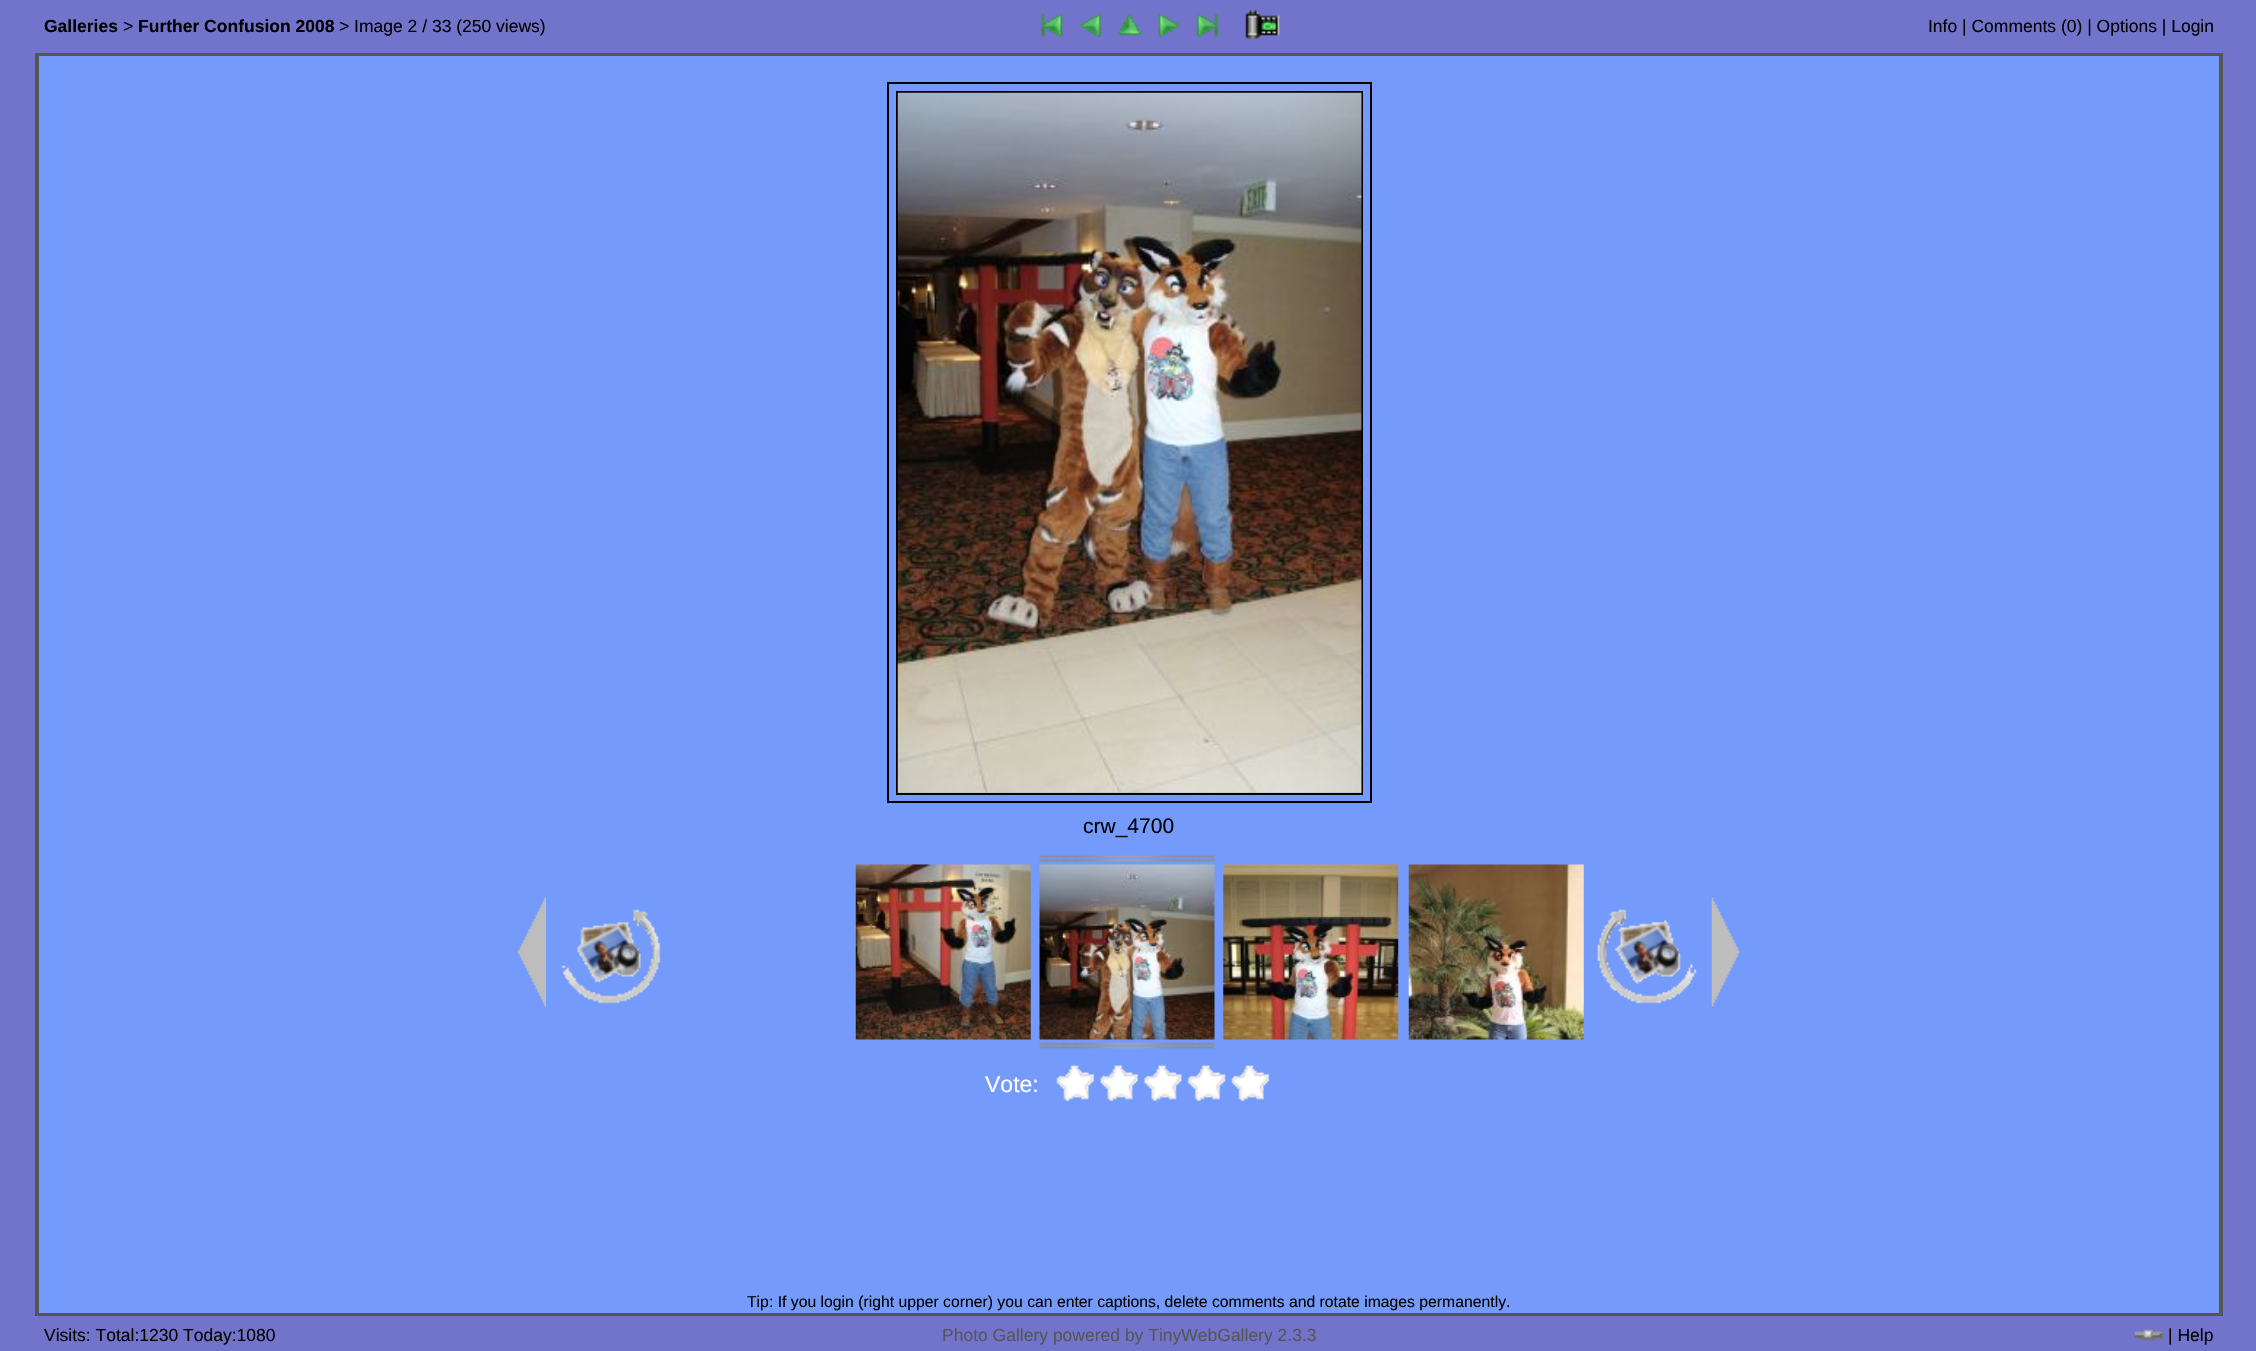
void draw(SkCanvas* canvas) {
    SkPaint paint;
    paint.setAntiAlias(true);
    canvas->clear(0xFF7274CB);
    SkFont font1(fontMgr->matchFamilyStyle("Liberation Sans", SkFontStyle::Bold()), 17.5f);
    font1.setSubpixel(true);
    paint.setColor(0xFF000000);
    canvas->drawString("Galleries", 44, 32, font1, paint);
    SkFont font2(fontMgr->matchFamilyStyle("Liberation Sans", SkFontStyle::Normal()), 17.5f);
    font2.setSubpixel(true);
    canvas->drawString(">", 123, 32, font2, paint);
    canvas->drawString("Further Confusion 2008", 138, 32, font1, paint);
    canvas->drawString("> Image 2 / 33 (250 views)", 339, 32, font2, paint);
    canvas->drawImageRect(SkImages::DeferredFromEncodedData(SkData::MakeFromFileName("img1.png")), SkRect::MakeXYWH(1040, 13, 23, 25), SkSamplingOptions());
    canvas->drawImageRect(SkImages::DeferredFromEncodedData(SkData::MakeFromFileName("img2.png")), SkRect::MakeXYWH(1079, 13, 23, 25), SkSamplingOptions());
    canvas->drawImageRect(SkImages::DeferredFromEncodedData(SkData::MakeFromFileName("img3.png")), SkRect::MakeXYWH(1117, 13, 25, 23), SkSamplingOptions());
    canvas->drawImageRect(SkImages::DeferredFromEncodedData(SkData::MakeFromFileName("img4.png")), SkRect::MakeXYWH(1158, 13, 22, 25), SkSamplingOptions());
    canvas->drawImageRect(SkImages::DeferredFromEncodedData(SkData::MakeFromFileName("img5.png")), SkRect::MakeXYWH(1196, 13, 23, 25), SkSamplingOptions());
    canvas->drawImageRect(SkImages::DeferredFromEncodedData(SkData::MakeFromFileName("img6.png")), SkRect::MakeXYWH(1245, 10, 35, 29), SkSamplingOptions());
    canvas->drawString("Info | Comments (0) | Options | Login", 1928, 32, font2, paint);
    paint.setStyle(SkPaint::kStroke_Style);
    paint.setStrokeWidth(4);
    paint.setColor(0xFF555555);
    canvas->drawRect(SkRect::MakeXYWH(37, 55, 2184, 1259), paint);
    paint.setStyle(SkPaint::kFill_Style);
    paint.setColor(0xFF749BFB);
    canvas->drawRect(SkRect::MakeXYWH(39, 56, 2180, 1257), paint);
    paint.setStyle(SkPaint::kStroke_Style);
    paint.setStrokeWidth(2);
    paint.setColor(0xFF000000);
    canvas->drawRect(SkRect::MakeXYWH(888, 83, 483, 719), paint);
    canvas->drawRect(SkRect::MakeXYWH(897, 92, 465, 702), paint);
    canvas->drawImageRect(SkImages::DeferredFromEncodedData(SkData::MakeFromFileName("img7.png")), SkRect::MakeXYWH(897, 92, 465, 701), SkSamplingOptions());
    SkFont font3(fontMgr->matchFamilyStyle("Liberation Sans", SkFontStyle::Normal()), 21);
    font3.setSubpixel(true);
    paint.setStyle(SkPaint::kFill_Style);
    canvas->drawString("crw_4700", 1083, 833, font3, paint);
    canvas->drawImageRect(SkImages::DeferredFromEncodedData(SkData::MakeFromFileName("img8.png")), SkRect::MakeXYWH(518, 897, 28, 110), SkSamplingOptions());
    canvas->drawImageRect(SkImages::DeferredFromEncodedData(SkData::MakeFromFileName("img9.png")), SkRect::MakeXYWH(561, 909, 100, 95), SkSamplingOptions());
    canvas->drawImageRect(SkImages::DeferredFromEncodedData(SkData::MakeFromFileName("img10.png")), SkRect::MakeXYWH(855, 864, 176, 176), SkSamplingOptions());
    canvas->drawImageRect(SkImages::DeferredFromEncodedData(SkData::MakeFromFileName("img11.png")), SkRect::MakeXYWH(1039, 855, 176, 7), SkSamplingOptions());
    canvas->drawImageRect(SkImages::DeferredFromEncodedData(SkData::MakeFromFileName("img12.png")), SkRect::MakeXYWH(1039, 864, 176, 176), SkSamplingOptions());
    canvas->drawImageRect(SkImages::DeferredFromEncodedData(SkData::MakeFromFileName("img13.png")), SkRect::MakeXYWH(1039, 1042, 176, 7), SkSamplingOptions());
    canvas->drawImageRect(SkImages::DeferredFromEncodedData(SkData::MakeFromFileName("img14.png")), SkRect::MakeXYWH(1223, 864, 176, 176), SkSamplingOptions());
    canvas->drawImageRect(SkImages::DeferredFromEncodedData(SkData::MakeFromFileName("img15.png")), SkRect::MakeXYWH(1408, 864, 176, 176), SkSamplingOptions());
    canvas->drawImageRect(SkImages::DeferredFromEncodedData(SkData::MakeFromFileName("img16.png")), SkRect::MakeXYWH(1597, 909, 100, 95), SkSamplingOptions());
    canvas->drawImageRect(SkImages::DeferredFromEncodedData(SkData::MakeFromFileName("img17.png")), SkRect::MakeXYWH(1711, 897, 29, 110), SkSamplingOptions());
    SkFont font4(fontMgr->matchFamilyStyle("Liberation Sans", SkFontStyle::Normal()), 23);
    font4.setSubpixel(true);
    paint.setColor(0xFFFFFFFF);
    canvas->drawString("Vote:", 985, 1092, font4, paint);
    canvas->drawImageRect(SkImages::DeferredFromEncodedData(SkData::MakeFromFileName("img18.png")), SkRect::MakeXYWH(1056, 1065, 214, 37), SkSamplingOptions());
    SkFont font5(fontMgr->matchFamilyStyle("Liberation Sans", SkFontStyle::Normal()), 15.75f);
    font5.setSubpixel(true);
    paint.setColor(0xFF000000);
    canvas->drawString("Tip: If you login (right upper corner) you can enter captions, delete comments and rotate images permanently.", 747, 1307, font5, paint);
    canvas->drawString("Visits: Total:1230 Today:1080", 44, 1341, font2, paint);
    paint.setColor(0xFF555555);
    canvas->drawString("Photo Gallery powered by TinyWebGallery 2.3.3", 942, 1341, font2, paint);
    canvas->drawImageRect(SkImages::DeferredFromEncodedData(SkData::MakeFromFileName("img19.png")), SkRect::MakeXYWH(2135, 1329, 28, 12), SkSamplingOptions());
    paint.setColor(0xFF000000);
    canvas->drawString("| Help", 2168, 1341, font2, paint);
}
